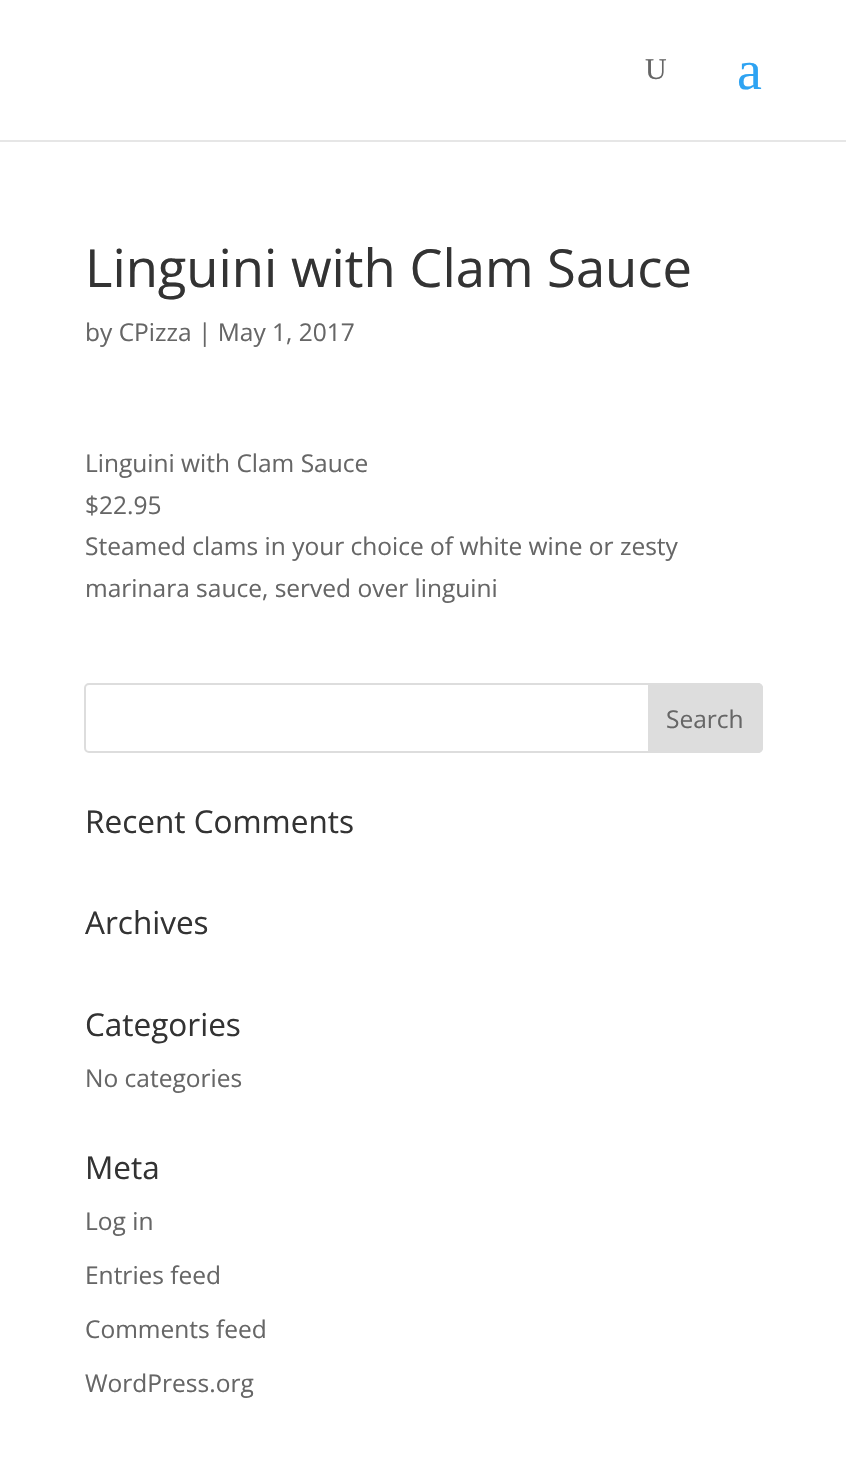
void draw(SkCanvas* canvas) {
    SkPaint paint;
    paint.setAntiAlias(true);
    canvas->clear(0xFFFFFFFF);
    paint.setColor(0xFFE6E6E6);
    canvas->drawRect(SkRect::MakeXYWH(0, 140, 846, 2), paint);
    SkFont font1(fontMgr->matchFamilyStyle("Liberation Serif", SkFontStyle::Normal()), 30);
    font1.setSubpixel(true);
    paint.setColor(0xFF666666);
    canvas->drawString("U", 645, 79, font1, paint);
    SkFont font2(fontMgr->matchFamilyStyle("Liberation Serif", SkFontStyle::Normal()), 56);
    font2.setSubpixel(true);
    paint.setColor(0xFF2EA3F2);
    canvas->drawString("a", 737, 89, font2, paint);
    SkFont font3(fontMgr->matchFamilyStyle("Open Sans", SkFontStyle::Normal()), 52.5f);
    font3.setSubpixel(true);
    paint.setColor(0xFF333333);
    canvas->drawString("Linguini with Clam Sauce", 85, 287, font3, paint);
    SkFont font4(fontMgr->matchFamilyStyle("Open Sans", SkFontStyle::Normal()), 24.5f);
    font4.setSubpixel(true);
    paint.setColor(0xFF666666);
    canvas->drawString("by CPizza | May 1, 2017", 85, 341, font4, paint);
    canvas->drawString("Linguini with Clam Sauce", 85, 472, font4, paint);
    canvas->drawString("$22.95", 85, 514, font4, paint);
    canvas->drawString("Steamed clams in your choice of white wine or zesty", 85, 555, font4, paint);
    canvas->drawString("marinara sauce, served over linguini", 85, 597, font4, paint);
    paint.setStyle(SkPaint::kStroke_Style);
    paint.setStrokeWidth(2);
    paint.setColor(0xFFDDDDDD);
    canvas->drawRoundRect(SkRect::MakeXYWH(85, 684, 677, 68), 4, 4, paint);
    paint.setStyle(SkPaint::kFill_Style);
    canvas->drawPath(SkPathBuilder().moveTo(649, 684).lineTo(758, 684).cubicTo(760, 684, 762, 686, 762, 688).lineTo(762, 748).cubicTo(762, 750, 760, 752, 758, 752).lineTo(649, 752).close().detach(), paint);
    paint.setStyle(SkPaint::kStroke_Style);
    canvas->drawPath(SkPathBuilder().moveTo(649, 684).lineTo(758, 684).cubicTo(760, 684, 762, 686, 762, 688).lineTo(762, 748).cubicTo(762, 750, 760, 752, 758, 752).lineTo(649, 752).close().detach(), paint);
    paint.setStyle(SkPaint::kFill_Style);
    paint.setColor(0xFF666666);
    canvas->drawString("Search", 666, 728, font4, paint);
    SkFont font5(fontMgr->matchFamilyStyle("Open Sans", SkFontStyle::Normal()), 31.5f);
    font5.setSubpixel(true);
    paint.setColor(0xFF333333);
    canvas->drawString("Recent Comments", 85, 833, font5, paint);
    canvas->drawString("Archives", 85, 934, font5, paint);
    canvas->drawString("Categories", 85, 1036, font5, paint);
    paint.setColor(0xFF666666);
    canvas->drawString("No categories", 85, 1087, font4, paint);
    paint.setColor(0xFF333333);
    canvas->drawString("Meta", 85, 1179, font5, paint);
    paint.setColor(0xFF666666);
    canvas->drawString("Log in", 85, 1230, font4, paint);
    canvas->drawString("Entries feed", 85, 1284, font4, paint);
    canvas->drawString("Comments feed", 85, 1338, font4, paint);
    canvas->drawString("WordPress.org", 85, 1392, font4, paint);
}
